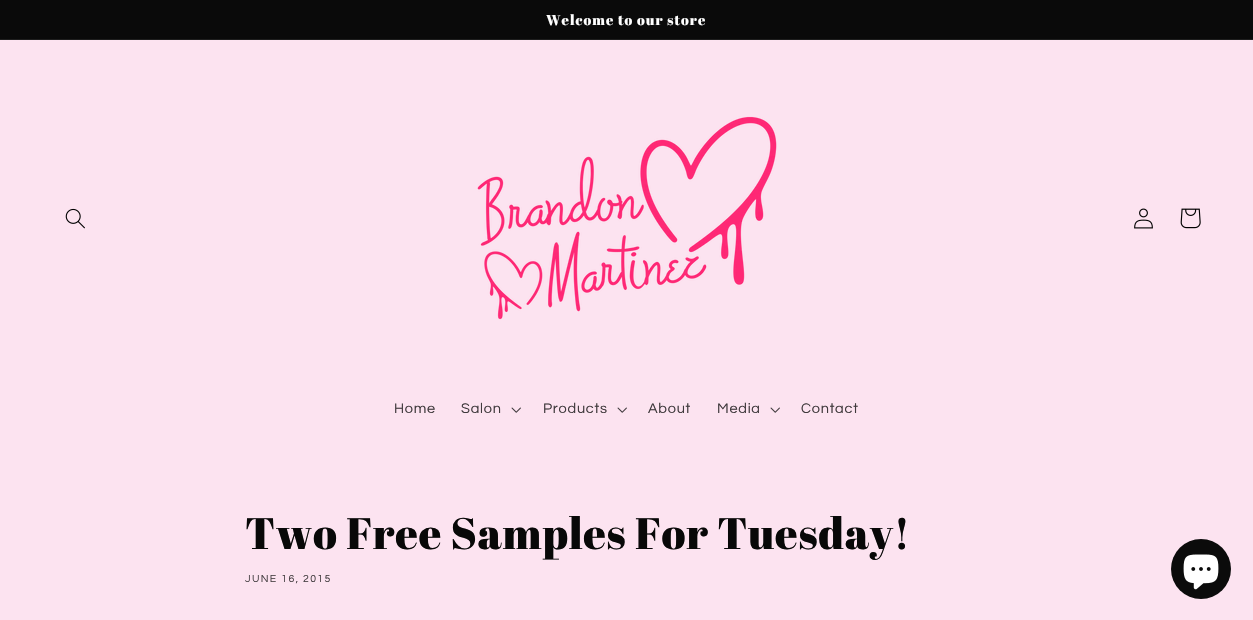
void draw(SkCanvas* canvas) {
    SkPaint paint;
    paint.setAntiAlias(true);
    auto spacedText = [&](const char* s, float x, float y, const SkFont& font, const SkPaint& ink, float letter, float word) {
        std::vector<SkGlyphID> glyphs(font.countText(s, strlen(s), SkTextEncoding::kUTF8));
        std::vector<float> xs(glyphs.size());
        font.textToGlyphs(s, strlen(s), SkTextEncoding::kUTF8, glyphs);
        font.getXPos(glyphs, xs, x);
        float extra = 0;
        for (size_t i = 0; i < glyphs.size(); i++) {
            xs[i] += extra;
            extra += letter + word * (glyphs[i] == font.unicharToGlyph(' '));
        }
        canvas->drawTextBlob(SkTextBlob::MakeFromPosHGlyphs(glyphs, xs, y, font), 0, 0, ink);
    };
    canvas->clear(0xFFFCE3F0);
    paint.setColor(0xFF0A0A0A);
    canvas->drawRect(SkRect::MakeXYWH(0, 0, 1253, 39), paint);
    paint.setColor(0xFF1E1E1E);
    canvas->drawRect(SkRect::MakeXYWH(0, 39, 1253, 1), paint);
    SkFont font1(fontMgr->matchFamilyStyle("Abril Fatface", SkFontStyle::Normal()), 14.25f);
    font1.setSubpixel(true);
    paint.setColor(0xFFFFFFFF);
    spacedText("Welcome to our store", 546, 25, font1, paint, 1.05f, 0);
    canvas->drawImageRect(SkImages::DeferredFromEncodedData(SkData::MakeFromFileName("img1.png")), SkRect::MakeXYWH(65, 208, 20, 21), SkSamplingOptions());
    canvas->drawImageRect(SkImages::DeferredFromEncodedData(SkData::MakeFromFileName("img2.png")), SkRect::MakeXYWH(477, 116, 300, 204), SkSamplingOptions());
    canvas->drawImageRect(SkImages::DeferredFromEncodedData(SkData::MakeFromFileName("img3.png")), SkRect::MakeXYWH(1134, 208, 19, 21), SkSamplingOptions());
    canvas->drawImageRect(SkImages::DeferredFromEncodedData(SkData::MakeFromFileName("img4.png")), SkRect::MakeXYWH(1180, 208, 21, 21), SkSamplingOptions());
    SkFont font2(fontMgr->matchFamilyStyle("Questrial", SkFontStyle::Normal()), 14.5f);
    font2.setSubpixel(true);
    paint.setColor(0xFF3F393C);
    spacedText("Home", 394, 413, font2, paint, 0.75f, 0);
    spacedText("Salon", 461, 413, font2, paint, 0.75f, 0);
    canvas->drawImageRect(SkImages::DeferredFromEncodedData(SkData::MakeFromFileName("img5.png")), SkRect::MakeXYWH(511, 407, 10, 6), SkSamplingOptions());
    spacedText("Products", 543, 413, font2, paint, 0.75f, 0);
    canvas->drawImageRect(SkImages::DeferredFromEncodedData(SkData::MakeFromFileName("img5.png")), SkRect::MakeXYWH(617, 407, 10, 6), SkSamplingOptions());
    spacedText("About", 648, 413, font2, paint, 0.75f, 0);
    spacedText("Media", 717, 413, font2, paint, 0.75f, 0);
    canvas->drawImageRect(SkImages::DeferredFromEncodedData(SkData::MakeFromFileName("img5.png")), SkRect::MakeXYWH(770, 407, 10, 6), SkSamplingOptions());
    spacedText("Contact", 801, 413, font2, paint, 0.75f, 0);
    SkFont font3(fontMgr->matchFamilyStyle("Abril Fatface", SkFontStyle::Normal()), 44);
    font3.setSubpixel(true);
    paint.setColor(0xFF080808);
    spacedText("Two Free Samples For Tuesday!", 245, 549, font3, paint, 0.65f, 0);
    SkFont font4(fontMgr->matchFamilyStyle("Questrial", SkFontStyle::Normal()), 10.5f);
    font4.setSubpixel(true);
    paint.setColor(0xFF453F42);
    spacedText("JUNE 16, 2015", 245, 582, font4, paint, 1.4f, 0);
    paint.setColor(0xFF0B0B0B);
    canvas->drawCircle(1201, 569, 30, paint);
    canvas->drawImageRect(SkImages::DeferredFromEncodedData(SkData::MakeFromFileName("img6.png")), SkRect::MakeXYWH(1183, 554, 36, 36), SkSamplingOptions());
}
